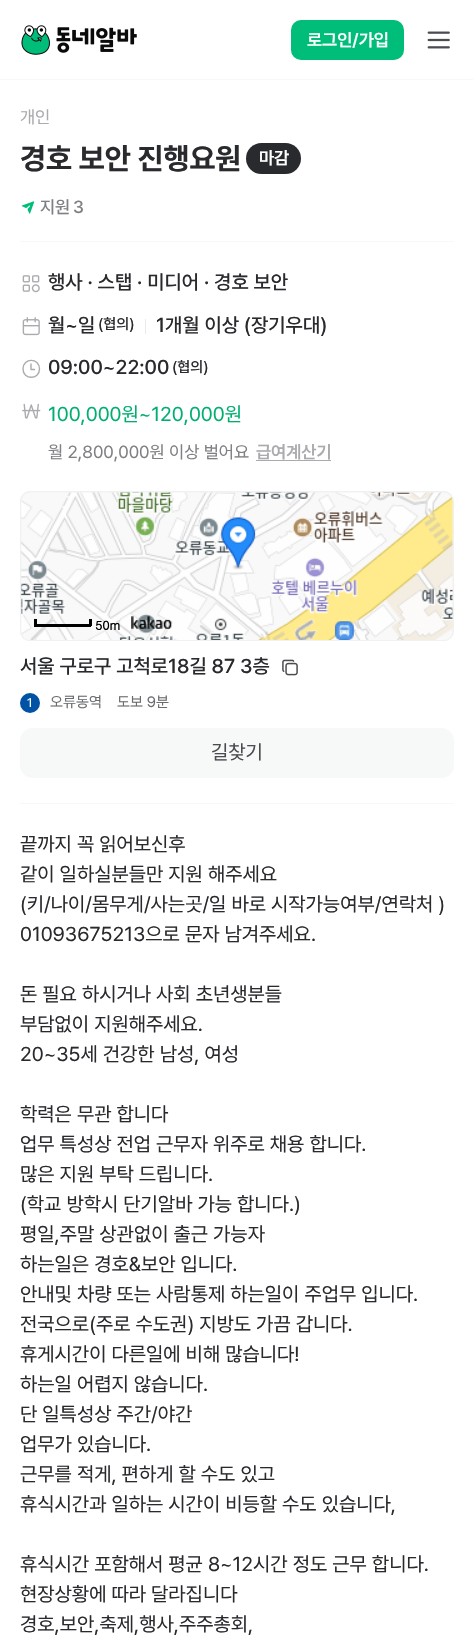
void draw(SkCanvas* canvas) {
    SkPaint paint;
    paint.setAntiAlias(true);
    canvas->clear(0xFFF7F8F8);
    paint.setColor(0xFFFFFFFF);
    canvas->drawRect(SkRect::MakeXYWH(0, 0, 473, 79), paint);
    canvas->drawImageRect(SkImages::DeferredFromEncodedData(SkData::MakeFromFileName("img1.png")), SkRect::MakeXYWH(21, 25, 116, 30), SkSamplingOptions());
    paint.setColor(0xFF00BE7A);
    canvas->drawRoundRect(SkRect::MakeXYWH(291, 20, 113, 40), 10, 10, paint);
    SkFont font1(fontMgr->matchFamilyStyle("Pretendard", SkFontStyle(600, SkFontStyle::kNormal_Width, SkFontStyle::kUpright_Slant)), 17.5f);
    font1.setSubpixel(true);
    paint.setColor(0xFFFFFFFF);
    canvas->drawString("로그인/가입", 307, 46, font1, paint);
    canvas->drawImageRect(SkImages::DeferredFromEncodedData(SkData::MakeFromFileName("img2.png")), SkRect::MakeXYWH(427, 31, 23, 18), SkSamplingOptions());
    canvas->drawRect(SkRect::MakeXYWH(0, 80, 473, 1560), paint);
    SkFont font2(fontMgr->matchFamilyStyle("Pretendard", SkFontStyle::Normal()), 17.5f);
    font2.setSubpixel(true);
    paint.setColor(0xFFA9ABAF);
    canvas->drawString("개인", 20, 123, font2, paint);
    SkFont font3(fontMgr->matchFamilyStyle("Pretendard", SkFontStyle::Bold()), 30);
    font3.setSubpixel(true);
    paint.setColor(0xFF292A2E);
    canvas->drawString("경호 보안 진행요원", 20, 169, font3, paint);
    canvas->drawRoundRect(SkRect::MakeXYWH(246, 143, 55, 31), 15.5f, 15.5f, paint);
    paint.setColor(0xFFFFFFFF);
    canvas->drawString("마감", 259, 164, font1, paint);
    canvas->drawImageRect(SkImages::DeferredFromEncodedData(SkData::MakeFromFileName("img3.png")), SkRect::MakeXYWH(21, 201, 14, 13), SkSamplingOptions());
    SkFont font4(fontMgr->matchFamilyStyle("Pretendard", SkFontStyle(500, SkFontStyle::kNormal_Width, SkFontStyle::kUpright_Slant)), 17.5f);
    font4.setSubpixel(true);
    paint.setColor(0xFF7F8085);
    canvas->drawString("지원", 40, 213, font4, paint);
    canvas->drawString("3", 73, 213, font4, paint);
    paint.setColor(0xFFF7F8F8);
    canvas->drawRect(SkRect::MakeXYWH(20, 241, 434, 1), paint);
    canvas->drawImageRect(SkImages::DeferredFromEncodedData(SkData::MakeFromFileName("img4.png")), SkRect::MakeXYWH(22, 275, 18, 18), SkSamplingOptions());
    SkFont font5(fontMgr->matchFamilyStyle("Pretendard", SkFontStyle(500, SkFontStyle::kNormal_Width, SkFontStyle::kUpright_Slant)), 20);
    font5.setSubpixel(true);
    paint.setColor(0xFF292A2E);
    canvas->drawString("행사 · 스탭 · 미디어 · 경호 보안", 48, 289, font5, paint);
    canvas->drawImageRect(SkImages::DeferredFromEncodedData(SkData::MakeFromFileName("img5.png")), SkRect::MakeXYWH(22, 317, 18, 19), SkSamplingOptions());
    canvas->drawString("월~일", 48, 332, font5, paint);
    SkFont font6(fontMgr->matchFamilyStyle("Pretendard", SkFontStyle(500, SkFontStyle::kNormal_Width, SkFontStyle::kUpright_Slant)), 15);
    font6.setSubpixel(true);
    canvas->drawString("(협의)", 98, 329, font6, paint);
    paint.setColor(0xFFE8EAED);
    canvas->drawRect(SkRect::MakeXYWH(145, 319, 1, 15), paint);
    paint.setColor(0xFF292A2E);
    canvas->drawString("1개월 이상 (장기우대)", 156, 332, font5, paint);
    paint.setStyle(SkPaint::kStroke_Style);
    paint.setStrokeWidth(1.4f);
    paint.setStrokeCap(SkPaint::kRound_Cap);
    paint.setStrokeJoin(SkPaint::kRound_Join);
    paint.setColor(0xFFA9ABAF);
    canvas->drawPath(SkPathBuilder().moveTo(34.5f, 369.5f).lineTo(31, 369.5f).lineTo(31, 364).moveTo(23, 369).cubicTo(23, 380, 39.5f, 380, 39.5f, 369).cubicTo(39.5f, 357.5f, 23, 357.5f, 23, 369).detach(), paint);
    paint.setStyle(SkPaint::kFill_Style);
    paint.setColor(0xFF292A2E);
    canvas->drawString("09:00~22:00", 48, 374, font5, paint);
    canvas->drawString("(협의)", 172, 372, font6, paint);
    canvas->drawImageRect(SkImages::DeferredFromEncodedData(SkData::MakeFromFileName("img6.png")), SkRect::MakeXYWH(22, 403, 19, 16), SkSamplingOptions());
    SkFont font7(fontMgr->matchFamilyStyle("Pretendard", SkFontStyle::Normal()), 20);
    font7.setSubpixel(true);
    paint.setColor(0xFF00AF70);
    canvas->drawString("100,000원~120,000원", 48, 421, font7, paint);
    paint.setColor(0xFF7F8085);
    canvas->drawString("월 2,800,000원 이상 벌어요", 48, 458, font2, paint);
    paint.setColor(0xFFA9ABAF);
    canvas->drawString("급여계산기", 256, 458, font1, paint);
    canvas->drawRect(SkRect::MakeXYWH(256, 460, 75, 1), paint);
    canvas->drawImageRect(SkImages::DeferredFromEncodedData(SkData::MakeFromFileName("img7.png")), SkRect::MakeXYWH(20, 491, 434, 150), SkSamplingOptions());
    paint.setStyle(SkPaint::kStroke_Style);
    paint.setStrokeWidth(1);
    paint.setStrokeCap(SkPaint::kButt_Cap);
    paint.setStrokeJoin(SkPaint::kMiter_Join);
    paint.setColor(0xFFEFF1F3);
    canvas->drawRoundRect(SkRect::MakeXYWH(20.5f, 491.5f, 433, 149), 9.5f, 9.5f, paint);
    canvas->drawImageRect(SkImages::DeferredFromEncodedData(SkData::MakeFromFileName("img8.png")), SkRect::MakeXYWH(21, 492, 219, 148), SkSamplingOptions());
    canvas->drawImageRect(SkImages::DeferredFromEncodedData(SkData::MakeFromFileName("img9.png")), SkRect::MakeXYWH(240, 492, 213, 148), SkSamplingOptions());
    canvas->drawImageRect(SkImages::DeferredFromEncodedData(SkData::MakeFromFileName("img10.png")), SkRect::MakeXYWH(221, 517, 35, 53), SkSamplingOptions());
    paint.setStyle(SkPaint::kFill_Style);
    paint.setColor(0xFF000000);
    canvas->drawRect(SkRect::MakeXYWH(89, 619, 3, 7), paint);
    canvas->drawRect(SkRect::MakeXYWH(34, 624, 57, 3), paint);
    canvas->drawRect(SkRect::MakeXYWH(34, 619, 3, 7), paint);
    SkFont font8(fontMgr->matchFamilyStyle("Dotum", SkFontStyle::Bold()), 12.5f);
    font8.setSubpixel(true);
    canvas->drawString("50m", 95, 630, font8, paint);
    canvas->drawImageRect(SkImages::DeferredFromEncodedData(SkData::MakeFromFileName("img11.png")), SkRect::MakeXYWH(131, 616, 41, 13), SkSamplingOptions());
    paint.setColor(0xFF292A2E);
    canvas->drawString("서울 구로구 고척로18길 87 3층", 20, 673, font5, paint);
    canvas->drawImageRect(SkImages::DeferredFromEncodedData(SkData::MakeFromFileName("img12.png")), SkRect::MakeXYWH(282, 659, 16, 17), SkSamplingOptions());
    paint.setColor(0xFF0052A4);
    canvas->drawCircle(30, 703, 10, paint);
    SkFont font9(fontMgr->matchFamilyStyle("Pretendard", SkFontStyle::Normal()), 12.5f);
    font9.setSubpixel(true);
    paint.setColor(0xFFFFFFFF);
    canvas->drawString("1", 27, 707, font9, paint);
    SkFont font10(fontMgr->matchFamilyStyle("Pretendard", SkFontStyle::Normal()), 15);
    font10.setSubpixel(true);
    paint.setColor(0xFF6A6C70);
    canvas->drawString("오류동역", 50, 707, font10, paint);
    canvas->drawString("도보 9분", 117, 707, font10, paint);
    paint.setColor(0xFFF7F8F8);
    canvas->drawRoundRect(SkRect::MakeXYWH(20, 728, 434, 50), 13, 13, paint);
    paint.setColor(0xFF4B4C50);
    canvas->drawString("길찾기", 211, 759, font7, paint);
    paint.setColor(0xFFF7F8F8);
    canvas->drawRect(SkRect::MakeXYWH(20, 803, 434, 1), paint);
    paint.setColor(0xFF292A2E);
    canvas->drawString("끝까지 꼭 읽어보신후", 20, 851, font7, paint);
    canvas->drawString("같이 일하실분들만 지원 해주세요", 20, 881, font7, paint);
    canvas->drawString("(키/나이/몸무게/사는곳/일 바로 시작가능여부/연락처 )", 20, 911, font7, paint);
    canvas->drawString("01093675213으로 문자 남겨주세요.", 20, 941, font7, paint);
    canvas->drawString("돈 필요 하시거나 사회 초년생분들", 20, 1001, font7, paint);
    canvas->drawString("부담없이 지원해주세요.", 20, 1031, font7, paint);
    canvas->drawString("20~35세 건강한 남성, 여성", 20, 1061, font7, paint);
    canvas->drawString("학력은 무관 합니다", 20, 1121, font7, paint);
    canvas->drawString("업무 특성상 전업 근무자 위주로 채용 합니다.", 20, 1151, font7, paint);
    canvas->drawString("많은 지원 부탁 드립니다.", 20, 1181, font7, paint);
    canvas->drawString("(학교 방학시 단기알바 가능 합니다.)", 20, 1211, font7, paint);
    canvas->drawString("평일,주말 상관없이 출근 가능자", 20, 1241, font7, paint);
    canvas->drawString("하는일은 경호&보안 입니다.", 20, 1271, font7, paint);
    canvas->drawString("안내및 차량 또는 사람통제 하는일이 주업무 입니다.", 20, 1301, font7, paint);
    canvas->drawString("전국으로(주로 수도권) 지방도 가끔 갑니다.", 20, 1331, font7, paint);
    canvas->drawString("휴게시간이 다른일에 비해 많습니다!", 20, 1361, font7, paint);
    canvas->drawString("하는일 어렵지 않습니다.", 20, 1391, font7, paint);
    canvas->drawString("단 일특성상 주간/야간", 20, 1421, font7, paint);
    canvas->drawString("업무가 있습니다.", 20, 1451, font7, paint);
    canvas->drawString("근무를 적게, 편하게 할 수도 있고", 20, 1481, font7, paint);
    canvas->drawString("휴식시간과 일하는 시간이 비등할 수도 있습니다,", 20, 1511, font7, paint);
    canvas->drawString("휴식시간 포함해서 평균 8~12시간 정도 근무 합니다.", 20, 1571, font7, paint);
    canvas->drawString("현장상황에 따라 달라집니다", 20, 1601, font7, paint);
    canvas->drawString("경호,보안,축제,행사,주주총회,", 20, 1631, font7, paint);
}
